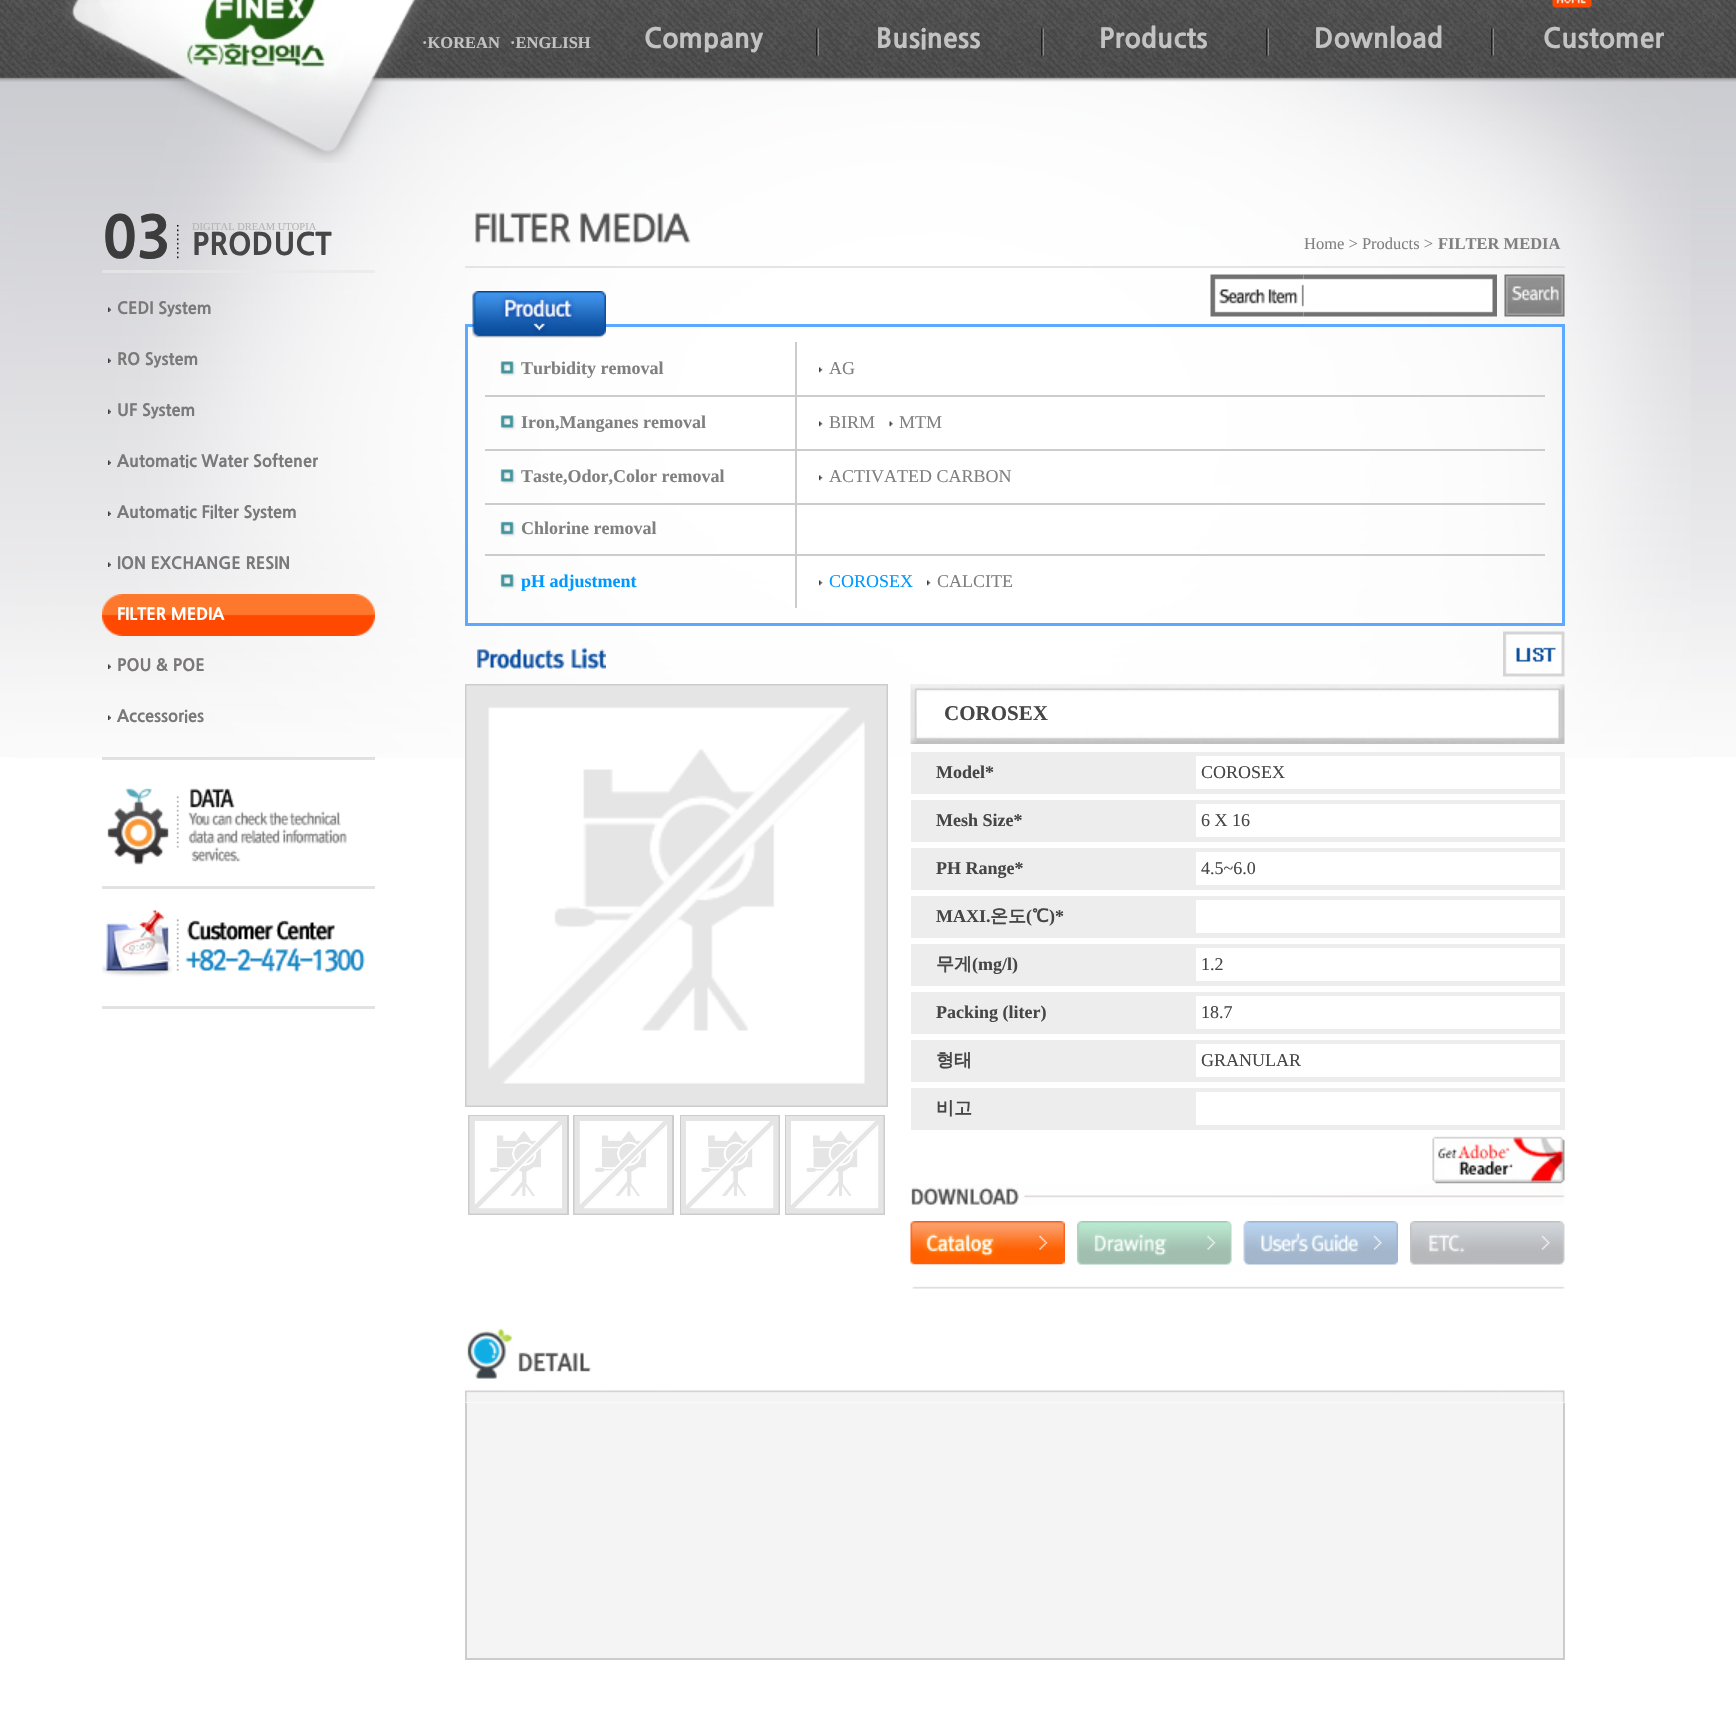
void draw(SkCanvas* canvas) {
    SkPaint paint;
    paint.setAntiAlias(true);
    canvas->clear(0xFFFFFFFF);
    canvas->drawImageRect(SkImages::DeferredFromEncodedData(SkData::MakeFromFileName("img1.png")), SkRect::MakeXYWH(0, 77, 1736, 680), SkSamplingOptions());
    canvas->drawImageRect(SkImages::DeferredFromEncodedData(SkData::MakeFromFileName("img2.png")), SkRect::MakeXYWH(14, 77, 1677, 681), SkSamplingOptions());
    canvas->drawImageRect(SkImages::DeferredFromEncodedData(SkData::MakeFromFileName("img3.png")), SkRect::MakeXYWH(0, 0, 1736, 82), SkSamplingOptions());
    canvas->drawImageRect(SkImages::DeferredFromEncodedData(SkData::MakeFromFileName("img4.png")), SkRect::MakeXYWH(65, 0, 360, 163), SkSamplingOptions());
    canvas->drawImageRect(SkImages::DeferredFromEncodedData(SkData::MakeFromFileName("img5.png")), SkRect::MakeXYWH(1552, 0, 40, 8), SkSamplingOptions());
    SkFont font1(fontMgr->matchFamilyStyle("Liberation Serif", SkFontStyle::Bold()), 16.5f);
    font1.setSubpixel(true);
    paint.setColor(0xFFC3C3C3);
    canvas->drawString("·KOREAN", 422, 48, font1, paint);
    canvas->drawString("·ENGLISH", 510, 48, font1, paint);
    SkFont font2(fontMgr->matchFamilyStyle("NanumGothic", SkFontStyle(800, SkFontStyle::kNormal_Width, SkFontStyle::kUpright_Slant)), 27);
    font2.setSubpixel(true);
    canvas->drawString("Company", 644, 48, font2, paint);
    canvas->drawImageRect(SkImages::DeferredFromEncodedData(SkData::MakeFromFileName("img6.png")), SkRect::MakeXYWH(816, 28, 3, 28), SkSamplingOptions());
    canvas->drawString("Business", 876, 48, font2, paint);
    canvas->drawImageRect(SkImages::DeferredFromEncodedData(SkData::MakeFromFileName("img7.png")), SkRect::MakeXYWH(1041, 28, 3, 28), SkSamplingOptions());
    canvas->drawString("Products", 1099, 48, font2, paint);
    canvas->drawImageRect(SkImages::DeferredFromEncodedData(SkData::MakeFromFileName("img7.png")), SkRect::MakeXYWH(1266, 28, 3, 28), SkSamplingOptions());
    canvas->drawString("Download", 1314, 48, font2, paint);
    canvas->drawImageRect(SkImages::DeferredFromEncodedData(SkData::MakeFromFileName("img7.png")), SkRect::MakeXYWH(1491, 28, 3, 28), SkSamplingOptions());
    canvas->drawString("Customer", 1543, 48, font2, paint);
    paint.setColor(0x78C2C2C2);
    canvas->drawRect(SkRect::MakeXYWH(102, 757, 273, 3), paint);
    paint.setColor(0xB3E8E8E8);
    canvas->drawRect(SkRect::MakeXYWH(102, 270, 273, 3), paint);
    SkFont font3(fontMgr->matchFamilyStyle("NanumGothic", SkFontStyle(800, SkFontStyle::kNormal_Width, SkFontStyle::kUpright_Slant)), 57);
    font3.setSubpixel(true);
    paint.setColor(0xFF3B3C3B);
    canvas->drawString("03", 102, 258, font3, paint);
    canvas->drawImageRect(SkImages::DeferredFromEncodedData(SkData::MakeFromFileName("img8.png")), SkRect::MakeXYWH(177, 225, 2, 34), SkSamplingOptions());
    SkFont font4(fontMgr->matchFamilyStyle("Liberation Serif", SkFontStyle::Normal()), 10.5f);
    font4.setSubpixel(true);
    paint.setColor(0xFFB5B6B0);
    canvas->drawString("DIGITAL DREAM UTOPIA", 192, 230, font4, paint);
    SkFont font5(fontMgr->matchFamilyStyle("NanumGothic", SkFontStyle(800, SkFontStyle::kNormal_Width, SkFontStyle::kUpright_Slant)), 30);
    font5.setSubpixel(true);
    paint.setColor(0xFF464646);
    canvas->drawString("PRODUCT", 192, 255, font5, paint);
    canvas->drawImageRect(SkImages::DeferredFromEncodedData(SkData::MakeFromFileName("img9.png")), SkRect::MakeXYWH(108, 307, 3, 5), SkSamplingOptions());
    SkFont font6(fontMgr->matchFamilyStyle("NanumGothic", SkFontStyle(800, SkFontStyle::kNormal_Width, SkFontStyle::kUpright_Slant)), 16.5f);
    font6.setSubpixel(true);
    paint.setColor(0xFF7A7878);
    canvas->drawString("CEDI System", 117, 314, font6, paint);
    canvas->drawImageRect(SkImages::DeferredFromEncodedData(SkData::MakeFromFileName("img10.png")), SkRect::MakeXYWH(108, 358, 3, 5), SkSamplingOptions());
    canvas->drawString("RO System", 117, 365, font6, paint);
    canvas->drawImageRect(SkImages::DeferredFromEncodedData(SkData::MakeFromFileName("img11.png")), SkRect::MakeXYWH(108, 409, 3, 5), SkSamplingOptions());
    canvas->drawString("UF System", 117, 416, font6, paint);
    canvas->drawImageRect(SkImages::DeferredFromEncodedData(SkData::MakeFromFileName("img12.png")), SkRect::MakeXYWH(108, 460, 3, 5), SkSamplingOptions());
    canvas->drawString("Automatic Water Softener", 117, 467, font6, paint);
    canvas->drawImageRect(SkImages::DeferredFromEncodedData(SkData::MakeFromFileName("img13.png")), SkRect::MakeXYWH(108, 511, 3, 5), SkSamplingOptions());
    canvas->drawString("Automatic Filter System", 117, 518, font6, paint);
    canvas->drawImageRect(SkImages::DeferredFromEncodedData(SkData::MakeFromFileName("img14.png")), SkRect::MakeXYWH(108, 562, 3, 5), SkSamplingOptions());
    canvas->drawString("ION EXCHANGE RESIN", 117, 569, font6, paint);
    canvas->drawImageRect(SkImages::DeferredFromEncodedData(SkData::MakeFromFileName("img15.png")), SkRect::MakeXYWH(102, 594, 273, 42), SkSamplingOptions());
    paint.setColor(0xFFFFFFFF);
    canvas->drawString("FILTER MEDIA", 117, 620, font6, paint);
    canvas->drawImageRect(SkImages::DeferredFromEncodedData(SkData::MakeFromFileName("img16.png")), SkRect::MakeXYWH(108, 664, 3, 5), SkSamplingOptions());
    paint.setColor(0xFF7A7878);
    canvas->drawString("POU & POE", 117, 671, font6, paint);
    canvas->drawImageRect(SkImages::DeferredFromEncodedData(SkData::MakeFromFileName("img17.png")), SkRect::MakeXYWH(108, 715, 3, 5), SkSamplingOptions());
    canvas->drawString("Accessories", 117, 722, font6, paint);
    canvas->drawImageRect(SkImages::DeferredFromEncodedData(SkData::MakeFromFileName("img18.png")), SkRect::MakeXYWH(107, 788, 240, 77), SkSamplingOptions());
    paint.setColor(0xFFE2E2E2);
    canvas->drawRect(SkRect::MakeXYWH(102, 886, 273, 3), paint);
    canvas->drawImageRect(SkImages::DeferredFromEncodedData(SkData::MakeFromFileName("img19.png")), SkRect::MakeXYWH(102, 910, 263, 67), SkSamplingOptions());
    canvas->drawRect(SkRect::MakeXYWH(102, 1006, 273, 3), paint);
    paint.setColor(0xFFE4E4E4);
    canvas->drawRect(SkRect::MakeXYWH(465, 266, 1100, 2), paint);
    canvas->drawImageRect(SkImages::DeferredFromEncodedData(SkData::MakeFromFileName("img20.png")), SkRect::MakeXYWH(475, 212, 216, 32), SkSamplingOptions());
    SkFont font7(fontMgr->matchFamilyStyle("Liberation Serif", SkFontStyle::Normal()), 16.5f);
    font7.setSubpixel(true);
    paint.setColor(0xFF808080);
    canvas->drawString("Home > Products >", 1304, 249, font7, paint);
    canvas->drawString("FILTER MEDIA", 1438, 249, font1, paint);
    paint.setStyle(SkPaint::kStroke_Style);
    paint.setStrokeWidth(3);
    paint.setColor(0xFF5DA9FF);
    canvas->drawRect(SkRect::MakeXYWH(466.5f, 325.5f, 1097, 299), paint);
    canvas->drawImageRect(SkImages::DeferredFromEncodedData(SkData::MakeFromFileName("img21.png")), SkRect::MakeXYWH(472, 291, 134, 47), SkSamplingOptions());
    canvas->drawImageRect(SkImages::DeferredFromEncodedData(SkData::MakeFromFileName("img23.png")), SkRect::MakeXYWH(1303, 274, 194, 43), SkSamplingOptions());
    canvas->drawImageRect(SkImages::DeferredFromEncodedData(SkData::MakeFromFileName("img22.png")), SkRect::MakeXYWH(1210, 274, 94, 43), SkSamplingOptions());
    canvas->drawImageRect(SkImages::DeferredFromEncodedData(SkData::MakeFromFileName("img24.png")), SkRect::MakeXYWH(1504, 274, 61, 43), SkSamplingOptions());
    paint.setStyle(SkPaint::kFill_Style);
    paint.setColor(0xFFCCCCCC);
    canvas->drawRect(SkRect::MakeXYWH(795, 342, 2, 53), paint);
    canvas->drawImageRect(SkImages::DeferredFromEncodedData(SkData::MakeFromFileName("img25.png")), SkRect::MakeXYWH(500, 361, 16, 15), SkSamplingOptions());
    SkFont font8(fontMgr->matchFamilyStyle("Liberation Serif", SkFontStyle::Bold()), 18);
    font8.setSubpixel(true);
    paint.setColor(0xFF808080);
    canvas->drawString("Turbidity removal", 521, 374, font8, paint);
    canvas->drawImageRect(SkImages::DeferredFromEncodedData(SkData::MakeFromFileName("img26.png")), SkRect::MakeXYWH(819, 367, 4, 6), SkSamplingOptions());
    SkFont font9(fontMgr->matchFamilyStyle("Liberation Serif", SkFontStyle::Normal()), 18);
    font9.setSubpixel(true);
    canvas->drawString("AG", 829, 374, font9, paint);
    paint.setColor(0xFFCCCCCC);
    canvas->drawRect(SkRect::MakeXYWH(485, 395, 1060, 2), paint);
    canvas->drawRect(SkRect::MakeXYWH(795, 395, 2, 54), paint);
    canvas->drawImageRect(SkImages::DeferredFromEncodedData(SkData::MakeFromFileName("img25.png")), SkRect::MakeXYWH(500, 415, 16, 15), SkSamplingOptions());
    paint.setColor(0xFF808080);
    canvas->drawString("Iron,Manganes removal", 521, 428, font8, paint);
    canvas->drawImageRect(SkImages::DeferredFromEncodedData(SkData::MakeFromFileName("img26.png")), SkRect::MakeXYWH(819, 421, 4, 6), SkSamplingOptions());
    canvas->drawString("BIRM", 829, 428, font9, paint);
    canvas->drawImageRect(SkImages::DeferredFromEncodedData(SkData::MakeFromFileName("img27.png")), SkRect::MakeXYWH(889, 421, 4, 6), SkSamplingOptions());
    canvas->drawString("MTM", 899, 428, font9, paint);
    paint.setColor(0xFFCCCCCC);
    canvas->drawRect(SkRect::MakeXYWH(485, 449, 1060, 2), paint);
    canvas->drawRect(SkRect::MakeXYWH(795, 449, 2, 54), paint);
    canvas->drawImageRect(SkImages::DeferredFromEncodedData(SkData::MakeFromFileName("img25.png")), SkRect::MakeXYWH(500, 469, 16, 15), SkSamplingOptions());
    paint.setColor(0xFF808080);
    canvas->drawString("Taste,Odor,Color removal", 521, 482, font8, paint);
    canvas->drawImageRect(SkImages::DeferredFromEncodedData(SkData::MakeFromFileName("img26.png")), SkRect::MakeXYWH(819, 475, 4, 6), SkSamplingOptions());
    canvas->drawString("ACTIVATED CARBON", 829, 482, font9, paint);
    paint.setColor(0xFFCCCCCC);
    canvas->drawRect(SkRect::MakeXYWH(485, 503, 1060, 2), paint);
    canvas->drawRect(SkRect::MakeXYWH(795, 503, 2, 51), paint);
    canvas->drawImageRect(SkImages::DeferredFromEncodedData(SkData::MakeFromFileName("img28.png")), SkRect::MakeXYWH(500, 521, 16, 16), SkSamplingOptions());
    paint.setColor(0xFF808080);
    canvas->drawString("Chlorine removal", 521, 534, font8, paint);
    paint.setColor(0xFFCCCCCC);
    canvas->drawRect(SkRect::MakeXYWH(485, 554, 1060, 2), paint);
    canvas->drawRect(SkRect::MakeXYWH(795, 554, 2, 54), paint);
    canvas->drawImageRect(SkImages::DeferredFromEncodedData(SkData::MakeFromFileName("img25.png")), SkRect::MakeXYWH(500, 574, 16, 15), SkSamplingOptions());
    paint.setColor(0xFF0099FF);
    canvas->drawString("pH adjustment", 521, 587, font8, paint);
    canvas->drawImageRect(SkImages::DeferredFromEncodedData(SkData::MakeFromFileName("img26.png")), SkRect::MakeXYWH(819, 580, 4, 6), SkSamplingOptions());
    canvas->drawString("COROSEX", 829, 587, font9, paint);
    canvas->drawImageRect(SkImages::DeferredFromEncodedData(SkData::MakeFromFileName("img26.png")), SkRect::MakeXYWH(927, 580, 4, 6), SkSamplingOptions());
    paint.setColor(0xFF808080);
    canvas->drawString("CALCITE", 937, 587, font9, paint);
    canvas->drawImageRect(SkImages::DeferredFromEncodedData(SkData::MakeFromFileName("img29.png")), SkRect::MakeXYWH(477, 647, 129, 22), SkSamplingOptions());
    canvas->drawImageRect(SkImages::DeferredFromEncodedData(SkData::MakeFromFileName("img30.png")), SkRect::MakeXYWH(1503, 631, 62, 46), SkSamplingOptions());
    paint.setStyle(SkPaint::kStroke_Style);
    paint.setStrokeWidth(2);
    paint.setColor(0xFFCCCCCC);
    canvas->drawRect(SkRect::MakeXYWH(466, 685, 421, 421), paint);
    canvas->drawImageRect(SkImages::DeferredFromEncodedData(SkData::MakeFromFileName("img31.png")), SkRect::MakeXYWH(466, 685, 421, 421), SkSamplingOptions());
    canvas->drawRect(SkRect::MakeXYWH(469, 1116, 99, 98), paint);
    canvas->drawImageRect(SkImages::DeferredFromEncodedData(SkData::MakeFromFileName("img32.png")), SkRect::MakeXYWH(469, 1116, 98, 98), SkSamplingOptions());
    canvas->drawRect(SkRect::MakeXYWH(574, 1116, 99, 98), paint);
    canvas->drawImageRect(SkImages::DeferredFromEncodedData(SkData::MakeFromFileName("img33.png")), SkRect::MakeXYWH(574, 1116, 98, 98), SkSamplingOptions());
    canvas->drawRect(SkRect::MakeXYWH(681, 1116, 98, 98), paint);
    canvas->drawImageRect(SkImages::DeferredFromEncodedData(SkData::MakeFromFileName("img34.png")), SkRect::MakeXYWH(681, 1116, 98, 98), SkSamplingOptions());
    canvas->drawRect(SkRect::MakeXYWH(786, 1116, 98, 98), paint);
    canvas->drawImageRect(SkImages::DeferredFromEncodedData(SkData::MakeFromFileName("img34.png")), SkRect::MakeXYWH(786, 1116, 98, 98), SkSamplingOptions());
    canvas->drawImageRect(SkImages::DeferredFromEncodedData(SkData::MakeFromFileName("img35.png")), SkRect::MakeXYWH(910, 684, 655, 60), SkSamplingOptions());
    SkFont font10(fontMgr->matchFamilyStyle("Liberation Serif", SkFontStyle::Bold()), 21);
    font10.setSubpixel(true);
    paint.setStyle(SkPaint::kFill_Style);
    paint.setColor(0xFF464646);
    canvas->drawString("COROSEX", 944, 720, font10, paint);
    paint.setColor(0xFFEDEDED);
    canvas->drawRect(SkRect::MakeXYWH(911, 752, 654, 42), paint);
    paint.setColor(0xFF464646);
    canvas->drawString("Model*", 936, 778, font8, paint);
    paint.setColor(0xFFFFFFFF);
    canvas->drawRect(SkRect::MakeXYWH(1196, 756, 364, 33), paint);
    paint.setColor(0xFF464646);
    canvas->drawString("COROSEX", 1201, 778, font9, paint);
    paint.setColor(0xFFEDEDED);
    canvas->drawRect(SkRect::MakeXYWH(911, 800, 654, 42), paint);
    paint.setColor(0xFF464646);
    canvas->drawString("Mesh Size*", 936, 826, font8, paint);
    paint.setColor(0xFFFFFFFF);
    canvas->drawRect(SkRect::MakeXYWH(1196, 804, 364, 33), paint);
    paint.setColor(0xFF464646);
    canvas->drawString("6 X 16", 1201, 826, font9, paint);
    paint.setColor(0xFFEDEDED);
    canvas->drawRect(SkRect::MakeXYWH(911, 848, 654, 42), paint);
    paint.setColor(0xFF464646);
    canvas->drawString("PH Range*", 936, 874, font8, paint);
    paint.setColor(0xFFFFFFFF);
    canvas->drawRect(SkRect::MakeXYWH(1196, 852, 364, 33), paint);
    paint.setColor(0xFF464646);
    canvas->drawString("4.5~6.0", 1201, 874, font9, paint);
    paint.setColor(0xFFEDEDED);
    canvas->drawRect(SkRect::MakeXYWH(911, 896, 654, 42), paint);
    paint.setColor(0xFF464646);
    canvas->drawString("MAXI.", 936, 922, font8, paint);
    SkFont font11(fontMgr->matchFamilyStyle("WenQuanYi Zen Hei", SkFontStyle::Bold()), 18);
    font11.setSubpixel(true);
    canvas->drawString("온도", 990, 922, font11, paint);
    canvas->drawString("(", 1026, 922, font8, paint);
    canvas->drawString("℃", 1032, 922, font11, paint);
    canvas->drawString(")*", 1049, 922, font8, paint);
    paint.setColor(0xFFFFFFFF);
    canvas->drawRect(SkRect::MakeXYWH(1196, 900, 364, 33), paint);
    paint.setColor(0xFFEDEDED);
    canvas->drawRect(SkRect::MakeXYWH(911, 944, 654, 42), paint);
    paint.setColor(0xFF464646);
    canvas->drawString("무게", 936, 970, font11, paint);
    canvas->drawString("(mg/l)", 972, 970, font8, paint);
    paint.setColor(0xFFFFFFFF);
    canvas->drawRect(SkRect::MakeXYWH(1196, 948, 364, 33), paint);
    paint.setColor(0xFF464646);
    canvas->drawString("1.2", 1201, 970, font9, paint);
    paint.setColor(0xFFEDEDED);
    canvas->drawRect(SkRect::MakeXYWH(911, 992, 654, 42), paint);
    paint.setColor(0xFF464646);
    canvas->drawString("Packing (liter)", 936, 1018, font8, paint);
    paint.setColor(0xFFFFFFFF);
    canvas->drawRect(SkRect::MakeXYWH(1196, 996, 364, 33), paint);
    paint.setColor(0xFF464646);
    canvas->drawString("18.7", 1201, 1018, font9, paint);
    paint.setColor(0xFFEDEDED);
    canvas->drawRect(SkRect::MakeXYWH(911, 1040, 654, 42), paint);
    paint.setColor(0xFF464646);
    canvas->drawString("형태", 936, 1066, font11, paint);
    paint.setColor(0xFFFFFFFF);
    canvas->drawRect(SkRect::MakeXYWH(1196, 1044, 364, 33), paint);
    paint.setColor(0xFF464646);
    canvas->drawString("GRANULAR", 1201, 1066, font9, paint);
    paint.setColor(0xFFEDEDED);
    canvas->drawRect(SkRect::MakeXYWH(911, 1088, 654, 42), paint);
    paint.setColor(0xFF464646);
    canvas->drawString("비고", 936, 1114, font11, paint);
    paint.setColor(0xFFFFFFFF);
    canvas->drawRect(SkRect::MakeXYWH(1196, 1092, 364, 33), paint);
    canvas->drawImageRect(SkImages::DeferredFromEncodedData(SkData::MakeFromFileName("img36.png")), SkRect::MakeXYWH(1432, 1135, 133, 49), SkSamplingOptions());
    canvas->drawImageRect(SkImages::DeferredFromEncodedData(SkData::MakeFromFileName("img37.png")), SkRect::MakeXYWH(911, 1183, 654, 22), SkSamplingOptions());
    canvas->drawImageRect(SkImages::DeferredFromEncodedData(SkData::MakeFromFileName("img38.png")), SkRect::MakeXYWH(910, 1221, 155, 44), SkSamplingOptions());
    canvas->drawImageRect(SkImages::DeferredFromEncodedData(SkData::MakeFromFileName("img42.png")), SkRect::MakeXYWH(911, 1264, 654, 25), SkSamplingOptions());
    canvas->drawImageRect(SkImages::DeferredFromEncodedData(SkData::MakeFromFileName("img39.png")), SkRect::MakeXYWH(1077, 1221, 155, 44), SkSamplingOptions());
    canvas->drawImageRect(SkImages::DeferredFromEncodedData(SkData::MakeFromFileName("img40.png")), SkRect::MakeXYWH(1243, 1221, 155, 44), SkSamplingOptions());
    canvas->drawImageRect(SkImages::DeferredFromEncodedData(SkData::MakeFromFileName("img41.png")), SkRect::MakeXYWH(1410, 1221, 155, 44), SkSamplingOptions());
    canvas->drawImageRect(SkImages::DeferredFromEncodedData(SkData::MakeFromFileName("img43.png")), SkRect::MakeXYWH(465, 1328, 1100, 75), SkSamplingOptions());
    paint.setColor(0xFFF4F4F4);
    canvas->drawRect(SkRect::MakeXYWH(467, 1403, 1096, 255), paint);
    paint.setColor(0xFFCCCCCC);
    canvas->drawRect(SkRect::MakeXYWH(1563, 1403, 2, 256), paint);
    canvas->drawRect(SkRect::MakeXYWH(465, 1658, 1100, 2), paint);
    canvas->drawRect(SkRect::MakeXYWH(465, 1403, 2, 256), paint);
}
